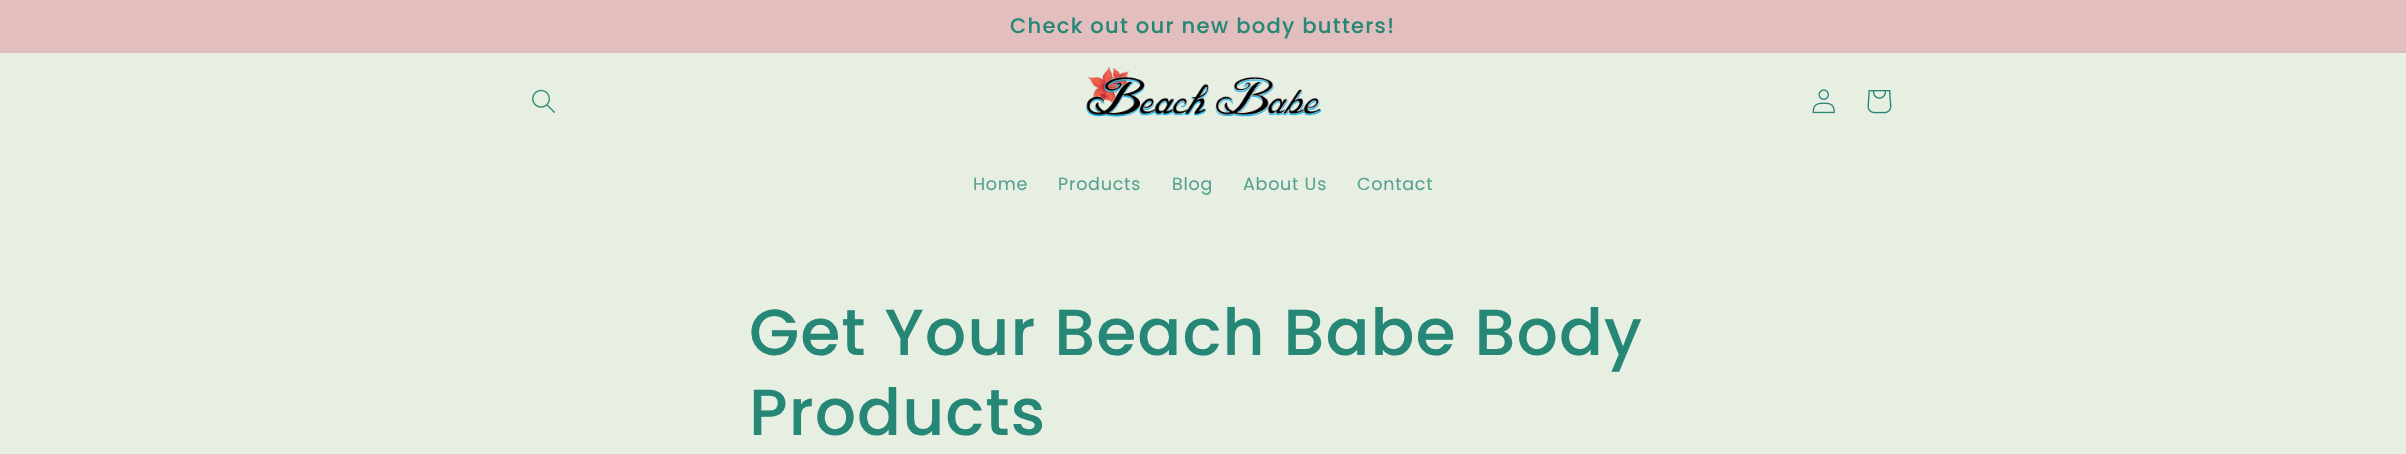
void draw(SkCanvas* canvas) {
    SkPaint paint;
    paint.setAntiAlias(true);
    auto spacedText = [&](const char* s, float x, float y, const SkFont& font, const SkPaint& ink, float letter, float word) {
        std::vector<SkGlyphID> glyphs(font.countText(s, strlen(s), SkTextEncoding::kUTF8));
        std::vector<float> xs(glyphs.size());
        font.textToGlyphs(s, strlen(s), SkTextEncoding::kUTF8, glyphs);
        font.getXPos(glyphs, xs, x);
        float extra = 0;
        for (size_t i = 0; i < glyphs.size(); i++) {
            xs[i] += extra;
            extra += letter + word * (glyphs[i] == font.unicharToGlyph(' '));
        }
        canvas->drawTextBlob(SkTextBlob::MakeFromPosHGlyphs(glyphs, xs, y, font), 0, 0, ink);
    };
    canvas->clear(0xFFE7EFE2);
    paint.setColor(0xFFE2BEBE);
    canvas->drawRect(SkRect::MakeXYWH(0, 0, 2406, 53), paint);
    paint.setColor(0xFFD3BAB8);
    canvas->drawRect(SkRect::MakeXYWH(0, 51, 2406, 1), paint);
    SkFont font1(fontMgr->matchFamilyStyle("Poppins", SkFontStyle(500, SkFontStyle::kNormal_Width, SkFontStyle::kUpright_Slant)), 21.1f);
    font1.setSubpixel(true);
    paint.setColor(0xFF268776);
    spacedText("Check out our new body butters!", 1010, 33, font1, paint, 1.25f, 0);
    canvas->drawImageRect(SkImages::DeferredFromEncodedData(SkData::MakeFromFileName("img1.png")), SkRect::MakeXYWH(532, 89, 23, 24), SkSamplingOptions());
    canvas->drawImageRect(SkImages::DeferredFromEncodedData(SkData::MakeFromFileName("img2.png")), SkRect::MakeXYWH(1085, 67, 237, 50), SkSamplingOptions());
    canvas->drawImageRect(SkImages::DeferredFromEncodedData(SkData::MakeFromFileName("img3.png")), SkRect::MakeXYWH(1812, 89, 23, 25), SkSamplingOptions());
    canvas->drawImageRect(SkImages::DeferredFromEncodedData(SkData::MakeFromFileName("img4.png")), SkRect::MakeXYWH(1867, 90, 25, 24), SkSamplingOptions());
    SkFont font2(fontMgr->matchFamilyStyle("Poppins", SkFontStyle::Normal()), 17.5f);
    font2.setSubpixel(true);
    paint.setColor(0xFF56A191);
    spacedText("Home", 973, 190, font2, paint, 0.75f, 0);
    spacedText("Products", 1058, 190, font2, paint, 0.75f, 0);
    spacedText("Blog", 1172, 190, font2, paint, 0.75f, 0);
    spacedText("About Us", 1243, 190, font2, paint, 0.75f, 0);
    spacedText("Contact", 1357, 190, font2, paint, 0.75f, 0);
    SkFont font3(fontMgr->matchFamilyStyle("Poppins", SkFontStyle(500, SkFontStyle::kNormal_Width, SkFontStyle::kUpright_Slant)), 65);
    font3.setSubpixel(true);
    paint.setColor(0xFF268776);
    spacedText("Get Your Beach Babe Body", 749, 355, font3, paint, 1, 0);
    spacedText("Products", 749, 435, font3, paint, 1, 0);
}
